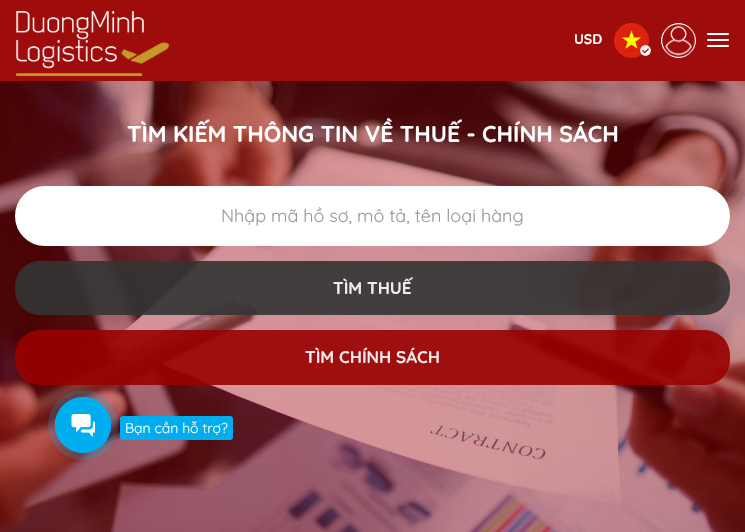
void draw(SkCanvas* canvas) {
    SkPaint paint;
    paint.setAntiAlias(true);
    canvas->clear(0xFFFFFFFF);
    canvas->drawImageRect(SkImages::DeferredFromEncodedData(SkData::MakeFromFileName("img5.png")), SkRect::MakeXYWH(0, 81, 745, 451), SkSamplingOptions());
    paint.setColor(0x1A000000);
    paint.setMaskFilter(SkMaskFilter::MakeBlur(kNormal_SkBlurStyle, 16.5f));
    canvas->drawRect(SkRect::MakeXYWH(0, 10, 745, 81), paint);
    paint.setMaskFilter(nullptr);
    paint.setColor(0xFF9E0C0C);
    canvas->drawRect(SkRect::MakeXYWH(0, 0, 745, 81), paint);
    canvas->drawImageRect(SkImages::DeferredFromEncodedData(SkData::MakeFromFileName("img1.png")), SkRect::MakeXYWH(16, 11, 153, 65), SkSamplingOptions());
    SkFont font1(fontMgr->matchFamilyStyle("Quicksand", SkFontStyle::Bold()), 14);
    font1.setSubpixel(true);
    paint.setColor(0xFFFFFFFF);
    canvas->drawString("USD", 574, 44, font1, paint);
    canvas->drawImageRect(SkImages::DeferredFromEncodedData(SkData::MakeFromFileName("img2.png")), SkRect::MakeXYWH(614, 23, 35, 35), SkSamplingOptions());
    canvas->drawImageRect(SkImages::DeferredFromEncodedData(SkData::MakeFromFileName("img3.png")), SkRect::MakeXYWH(640, 45, 11, 11), SkSamplingOptions());
    canvas->drawImageRect(SkImages::DeferredFromEncodedData(SkData::MakeFromFileName("img4.png")), SkRect::MakeXYWH(661, 23, 35, 35), SkSamplingOptions());
    canvas->drawRoundRect(SkRect::MakeXYWH(707, 33, 22, 2), 1, 1, paint);
    canvas->drawRoundRect(SkRect::MakeXYWH(707, 39, 22, 2), 1, 1, paint);
    canvas->drawRoundRect(SkRect::MakeXYWH(707, 45, 22, 2), 1, 1, paint);
    SkFont font2(fontMgr->matchFamilyStyle("Quicksand", SkFontStyle::Bold()), 23);
    font2.setSubpixel(true);
    canvas->drawString("TÌM KIẾM THÔNG TIN VỀ THUẾ - CHÍNH SÁCH", 127, 142, font2, paint);
    canvas->drawRoundRect(SkRect::MakeXYWH(16, 187, 713, 58), 29, 29, paint);
    paint.setStyle(SkPaint::kStroke_Style);
    paint.setStrokeWidth(2);
    canvas->drawRoundRect(SkRect::MakeXYWH(16, 187, 713, 58), 29, 29, paint);
    SkFont font3(fontMgr->matchFamilyStyle("Quicksand", SkFontStyle::Normal()), 18);
    font3.setSubpixel(true);
    paint.setStyle(SkPaint::kFill_Style);
    paint.setColor(0xFF999999);
    canvas->drawString("Nhập mã hồ sơ, mô tả, tên loại hàng", 221, 222, font3, paint);
    paint.setColor(0xE6333333);
    canvas->drawRoundRect(SkRect::MakeXYWH(15, 261, 715, 54), 25, 25, paint);
    SkFont font4(fontMgr->matchFamilyStyle("Quicksand", SkFontStyle::Bold()), 17);
    font4.setSubpixel(true);
    paint.setColor(0xFFECECEC);
    canvas->drawString("TÌM THUẾ", 333, 294, font4, paint);
    paint.setColor(0xE6990000);
    canvas->drawRoundRect(SkRect::MakeXYWH(15, 330, 715, 55), 25, 25, paint);
    paint.setColor(0xFFF5E7E7);
    canvas->drawString("TÌM CHÍNH SÁCH", 305, 363, font4, paint);
    paint.setColor(0x3300AEEF);
    canvas->drawCircle(83, 425, 35, paint);
    paint.setStyle(SkPaint::kStroke_Style);
    paint.setStrokeWidth(0.8f);
    paint.setColor(0xFF00AEEF);
    canvas->drawCircle(83, 425, 27.6f, paint);
    paint.setStyle(SkPaint::kFill_Style);
    canvas->drawCircle(83, 425, 28, paint);
    canvas->drawImageRect(SkImages::DeferredFromEncodedData(SkData::MakeFromFileName("img6.png")), SkRect::MakeXYWH(71, 414, 24, 23), SkSamplingOptions());
    canvas->drawRoundRect(SkRect::MakeXYWH(120, 416, 113, 24), 3, 3, paint);
    SkFont font5(fontMgr->matchFamilyStyle("Quicksand", SkFontStyle::Normal()), 14);
    font5.setSubpixel(true);
    paint.setColor(0xFFFFFFFF);
    canvas->drawString("Bạn cần hỗ trợ?", 125, 433, font5, paint);
}
